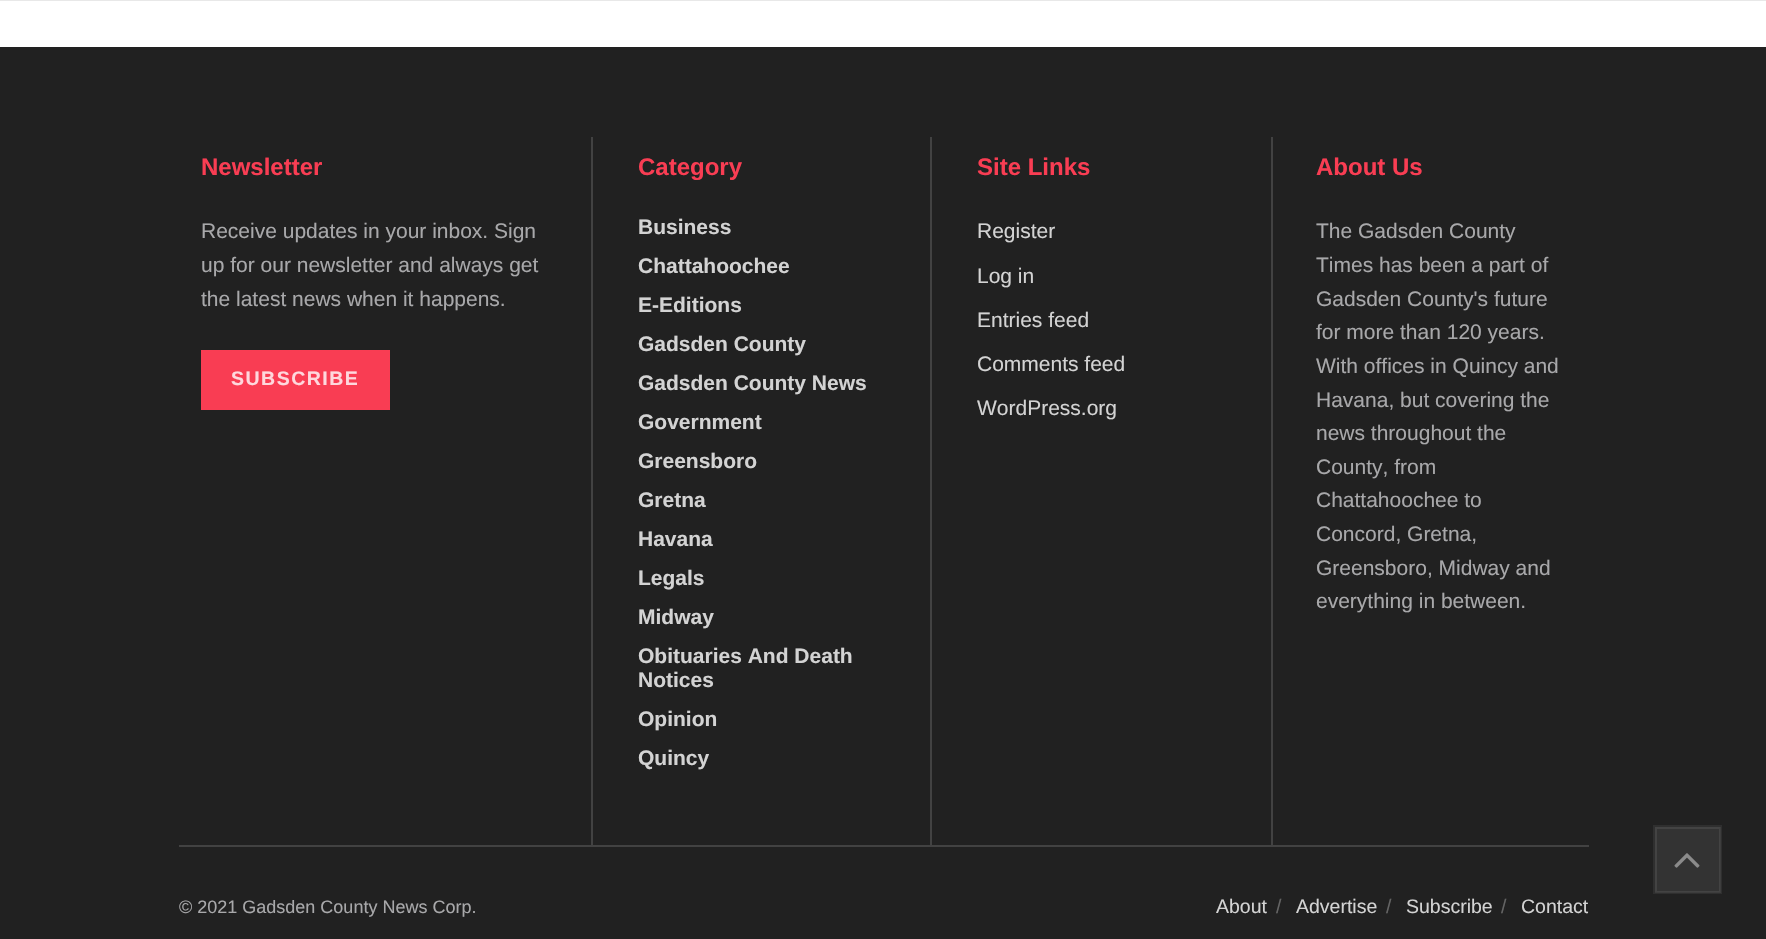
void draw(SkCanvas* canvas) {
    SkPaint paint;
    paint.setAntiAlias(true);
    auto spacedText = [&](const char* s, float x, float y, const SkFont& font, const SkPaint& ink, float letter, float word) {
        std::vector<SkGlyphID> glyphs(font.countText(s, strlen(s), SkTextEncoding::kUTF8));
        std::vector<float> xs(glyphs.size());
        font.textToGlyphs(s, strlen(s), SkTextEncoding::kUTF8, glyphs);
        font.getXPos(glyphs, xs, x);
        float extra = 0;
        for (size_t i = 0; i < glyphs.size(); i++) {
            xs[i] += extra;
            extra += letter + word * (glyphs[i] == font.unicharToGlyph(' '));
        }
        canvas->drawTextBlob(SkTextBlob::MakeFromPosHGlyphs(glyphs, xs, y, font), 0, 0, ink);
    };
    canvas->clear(0xFFFFFFFF);
    paint.setColor(0xFFE8E8E8);
    canvas->drawRect(SkRect::MakeXYWH(0, 0, 1766, 1), paint);
    paint.setColor(0xFF212121);
    canvas->drawRect(SkRect::MakeXYWH(0, 47, 1766, 892), paint);
    paint.setColor(0xFF424242);
    canvas->drawRect(SkRect::MakeXYWH(591, 137, 2, 708), paint);
    SkFont font1(fontMgr->matchFamilyStyle("Liberation Sans", SkFontStyle::Bold()), 24);
    font1.setSubpixel(true);
    paint.setColor(0xFFF93D53);
    canvas->drawString("Newsletter", 201, 175, font1, paint);
    SkFont font2(fontMgr->matchFamilyStyle("Liberation Sans", SkFontStyle::Normal()), 21);
    font2.setSubpixel(true);
    paint.setColor(0xFFA8A8AA);
    canvas->drawString("Receive updates in your inbox. Sign", 201, 238, font2, paint);
    canvas->drawString("up for our newsletter and always get", 201, 272, font2, paint);
    canvas->drawString("the latest news when it happens.", 201, 306, font2, paint);
    paint.setColor(0xFFF93D53);
    canvas->drawRect(SkRect::MakeXYWH(201, 350, 189, 60), paint);
    SkFont font3(fontMgr->matchFamilyStyle("Liberation Sans", SkFontStyle::Bold()), 19.5f);
    font3.setSubpixel(true);
    paint.setColor(0xFFFED8DD);
    spacedText("SUBSCRIBE", 231, 385, font3, paint, 1.5f, 0);
    paint.setColor(0xFF424242);
    canvas->drawRect(SkRect::MakeXYWH(930, 137, 2, 708), paint);
    paint.setColor(0xFFF93D53);
    canvas->drawString("Category", 638, 175, font1, paint);
    SkFont font4(fontMgr->matchFamilyStyle("Liberation Sans", SkFontStyle::Bold()), 21);
    font4.setSubpixel(true);
    paint.setColor(0xFFD3D3D3);
    canvas->drawString("Business", 638, 234, font4, paint);
    canvas->drawString("Chattahoochee", 638, 273, font4, paint);
    canvas->drawString("E-Editions", 638, 312, font4, paint);
    canvas->drawString("Gadsden County", 638, 351, font4, paint);
    canvas->drawString("Gadsden County News", 638, 390, font4, paint);
    canvas->drawString("Government", 638, 429, font4, paint);
    canvas->drawString("Greensboro", 638, 468, font4, paint);
    canvas->drawString("Gretna", 638, 507, font4, paint);
    canvas->drawString("Havana", 638, 546, font4, paint);
    canvas->drawString("Legals", 638, 585, font4, paint);
    canvas->drawString("Midway", 638, 624, font4, paint);
    canvas->drawString("Obituaries And Death", 638, 663, font4, paint);
    canvas->drawString("Notices", 638, 687, font4, paint);
    canvas->drawString("Opinion", 638, 726, font4, paint);
    canvas->drawString("Quincy", 638, 765, font4, paint);
    paint.setColor(0xFF424242);
    canvas->drawRect(SkRect::MakeXYWH(1271, 137, 2, 708), paint);
    paint.setColor(0xFFF93D53);
    canvas->drawString("Site Links", 977, 175, font1, paint);
    paint.setColor(0xFFD3D3D3);
    canvas->drawString("Register", 977, 238, font2, paint);
    canvas->drawString("Log in", 977, 283, font2, paint);
    canvas->drawString("Entries feed", 977, 327, font2, paint);
    canvas->drawString("Comments feed", 977, 371, font2, paint);
    canvas->drawString("WordPress.org", 977, 415, font2, paint);
    paint.setColor(0xFFF93D53);
    canvas->drawString("About Us", 1316, 175, font1, paint);
    paint.setColor(0xFFA8A8AA);
    canvas->drawString("The Gadsden County", 1316, 238, font2, paint);
    canvas->drawString("Times has been a part of", 1316, 272, font2, paint);
    canvas->drawString("Gadsden County's future", 1316, 306, font2, paint);
    canvas->drawString("for more than 120 years.", 1316, 339, font2, paint);
    canvas->drawString("With offices in Quincy and", 1316, 373, font2, paint);
    canvas->drawString("Havana, but covering the", 1316, 407, font2, paint);
    canvas->drawString("news throughout the", 1316, 440, font2, paint);
    canvas->drawString("County, from", 1316, 474, font2, paint);
    canvas->drawString("Chattahoochee to", 1316, 507, font2, paint);
    canvas->drawString("Concord, Gretna,", 1316, 541, font2, paint);
    canvas->drawString("Greensboro, Midway and", 1316, 575, font2, paint);
    canvas->drawString("everything in between.", 1316, 608, font2, paint);
    paint.setColor(0xFF424242);
    canvas->drawRect(SkRect::MakeXYWH(179, 845, 1410, 2), paint);
    SkFont font5(fontMgr->matchFamilyStyle("Liberation Sans", SkFontStyle::Normal()), 18);
    font5.setSubpixel(true);
    paint.setColor(0xFFA8A8AA);
    canvas->drawString("© 2021 Gadsden County News Corp.", 179, 913, font5, paint);
    SkFont font6(fontMgr->matchFamilyStyle("Liberation Sans", SkFontStyle::Normal()), 19.5f);
    font6.setSubpixel(true);
    paint.setColor(0xFFD3D3D3);
    canvas->drawString("About", 1216, 913, font6, paint);
    paint.setColor(0xFF646464);
    canvas->drawString("/", 1276, 913, font6, paint);
    paint.setColor(0xFFD3D3D3);
    canvas->drawString("Advertise", 1296, 913, font6, paint);
    paint.setColor(0xFF646464);
    canvas->drawString("/", 1386, 913, font6, paint);
    paint.setColor(0xFFD3D3D3);
    canvas->drawString("Subscribe", 1406, 913, font6, paint);
    paint.setColor(0xFF646464);
    canvas->drawString("/", 1501, 913, font6, paint);
    paint.setColor(0xFFD3D3D3);
    canvas->drawString("Contact", 1521, 913, font6, paint);
    paint.setColor(0xFF333333);
    canvas->drawRect(SkRect::MakeXYWH(1653, 825, 69, 69), paint);
    paint.setStyle(SkPaint::kStroke_Style);
    paint.setStrokeWidth(2);
    paint.setColor(0xFF434343);
    canvas->drawRect(SkRect::MakeXYWH(1656, 828, 64, 64), paint);
    paint.setColor(0x1C070707);
    canvas->drawRect(SkRect::MakeXYWH(1654, 826, 67, 67), paint);
    canvas->drawImageRect(SkImages::DeferredFromEncodedData(SkData::MakeFromFileName("img1.png")), SkRect::MakeXYWH(1674, 853, 26, 15), SkSamplingOptions());
}
